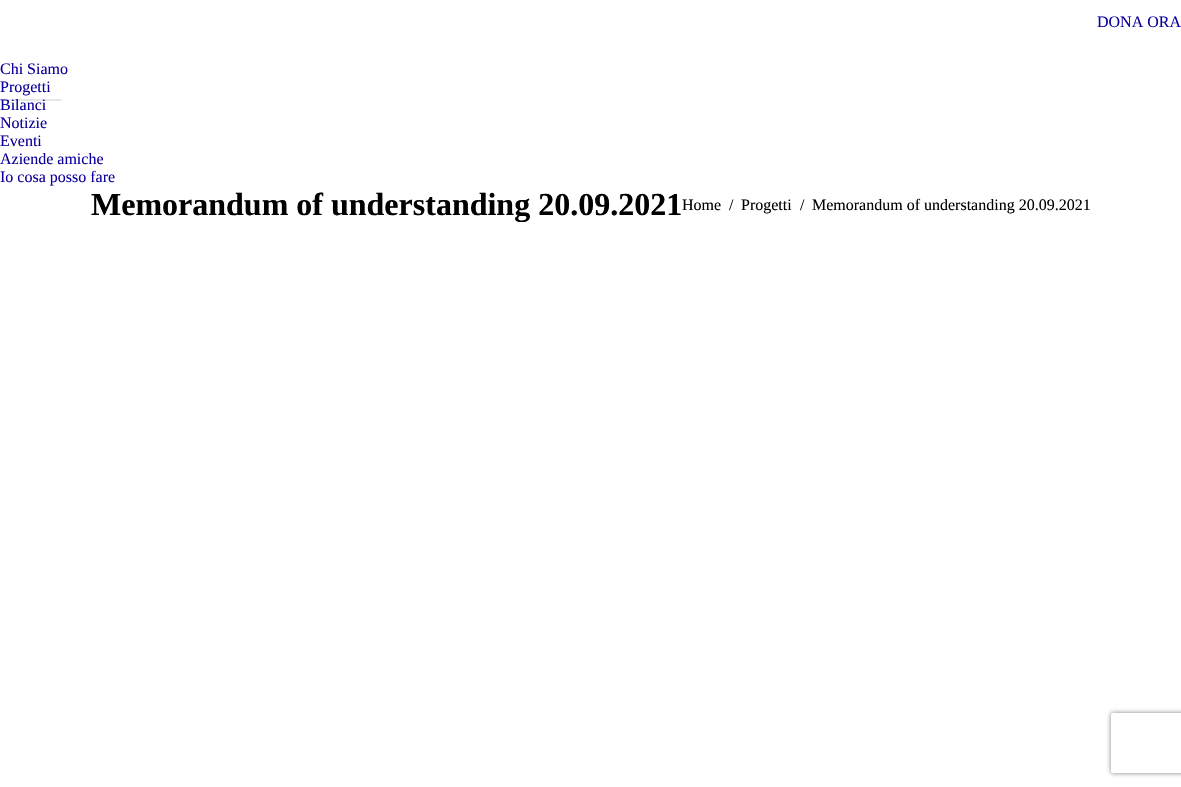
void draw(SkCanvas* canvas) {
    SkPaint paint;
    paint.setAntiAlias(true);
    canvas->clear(0xFFFFFFFF);
    SkFont font1(fontMgr->matchFamilyStyle("Liberation Serif", SkFontStyle::Normal()), 16);
    font1.setSubpixel(true);
    paint.setColor(0xFF0B0099);
    canvas->drawString("DONA ORA", 1097, 27, font1, paint);
    canvas->drawString("Chi Siamo", 0, 74, font1, paint);
    canvas->drawString("Progetti", 0, 92, font1, paint);
    paint.setColor(0xFFE6E6E6);
    canvas->drawRect(SkRect::MakeXYWH(0, 99, 61, 2), paint);
    paint.setColor(0xFF0B0099);
    canvas->drawString("Bilanci", 0, 110, font1, paint);
    canvas->drawString("Notizie", 0, 128, font1, paint);
    canvas->drawString("Eventi", 0, 146, font1, paint);
    canvas->drawString("Aziende amiche", 0, 164, font1, paint);
    canvas->drawString("Io cosa posso fare", 0, 182, font1, paint);
    SkFont font2(fontMgr->matchFamilyStyle("Liberation Serif", SkFontStyle::Bold()), 32);
    font2.setSubpixel(true);
    paint.setColor(0xFF000000);
    canvas->drawString("Memorandum of understanding 20.09.2021", 91, 215, font2, paint);
    canvas->drawString("Home", 682, 210, font1, paint);
    canvas->drawString("/", 729, 210, font1, paint);
    canvas->drawString("Progetti", 741, 210, font1, paint);
    canvas->drawString("/", 800, 210, font1, paint);
    canvas->drawString("Memorandum of understanding 20.09.2021", 812, 210, font1, paint);
    canvas->save();
    canvas->clipPath(SkPathBuilder(SkPathFillType::kEvenOdd).moveTo(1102, 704).lineTo(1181, 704).lineTo(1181, 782).lineTo(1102, 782).close().moveTo(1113, 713).lineTo(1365, 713).cubicTo(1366, 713, 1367, 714, 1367, 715).lineTo(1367, 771).cubicTo(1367, 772, 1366, 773, 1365, 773).lineTo(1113, 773).cubicTo(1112, 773, 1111, 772, 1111, 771).lineTo(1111, 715).cubicTo(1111, 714, 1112, 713, 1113, 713).close().detach(), true);
    paint.setColor(0xFF808080);
    paint.setMaskFilter(SkMaskFilter::MakeBlur(kNormal_SkBlurStyle, 2.5f));
    canvas->drawRoundRect(SkRect::MakeXYWH(1111, 713, 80, 60), 2, 2, paint);
    paint.setMaskFilter(nullptr);
    canvas->restore();
}
